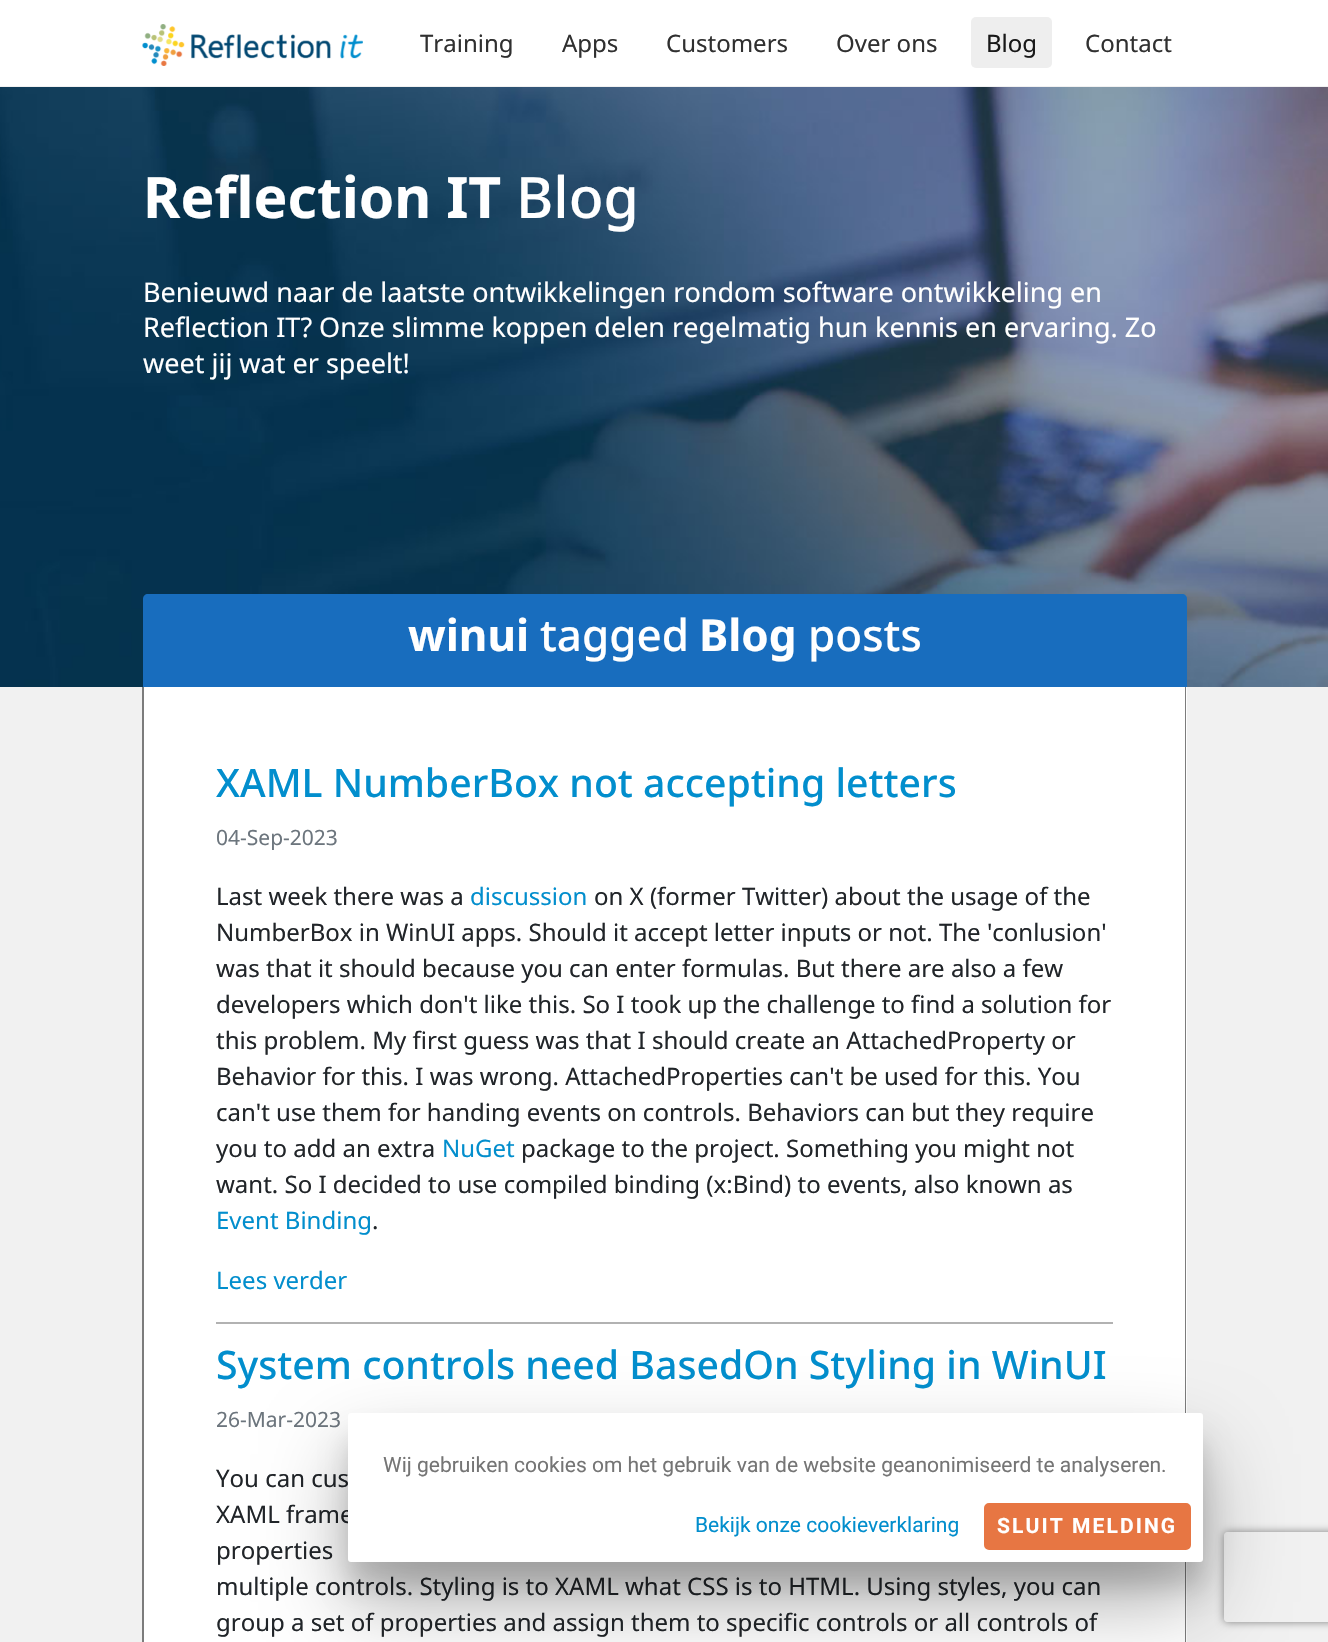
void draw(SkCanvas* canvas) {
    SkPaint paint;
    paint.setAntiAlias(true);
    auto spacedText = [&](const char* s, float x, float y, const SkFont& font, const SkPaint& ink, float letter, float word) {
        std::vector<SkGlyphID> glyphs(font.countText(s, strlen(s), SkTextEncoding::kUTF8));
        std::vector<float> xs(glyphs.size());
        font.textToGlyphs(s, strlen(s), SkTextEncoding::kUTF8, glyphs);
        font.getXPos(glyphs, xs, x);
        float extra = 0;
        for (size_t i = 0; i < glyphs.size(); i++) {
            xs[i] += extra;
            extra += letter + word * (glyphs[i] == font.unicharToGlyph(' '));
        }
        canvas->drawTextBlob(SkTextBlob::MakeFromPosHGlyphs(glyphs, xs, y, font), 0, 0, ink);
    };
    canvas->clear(0xFFF1F1F1);
    paint.setColor(0xFFFFFFFF);
    canvas->drawRect(SkRect::MakeXYWH(0, 0, 1328, 86), paint);
    canvas->drawImageRect(SkImages::DeferredFromEncodedData(SkData::MakeFromFileName("img1.png")), SkRect::MakeXYWH(142, 24, 221, 42), SkSamplingOptions());
    SkFont font1(fontMgr->matchFamilyStyle("Noto Sans", SkFontStyle::Normal()), 24);
    font1.setSubpixel(true);
    paint.setColor(0xFF303030);
    canvas->drawString("Training", 420, 52, font1, paint);
    canvas->drawString("Apps", 562, 52, font1, paint);
    canvas->drawString("Customers", 666, 52, font1, paint);
    canvas->drawString("Over ons", 836, 52, font1, paint);
    paint.setColor(0xFFEEEEEE);
    canvas->drawRoundRect(SkRect::MakeXYWH(971, 17, 81, 51), 5, 5, paint);
    paint.setColor(0xFF181818);
    canvas->drawString("Blog", 986, 52, font1, paint);
    paint.setColor(0xFF303030);
    canvas->drawString("Contact", 1085, 52, font1, paint);
    canvas->drawImageRect(SkImages::DeferredFromEncodedData(SkData::MakeFromFileName("img2.png")), SkRect::MakeXYWH(0, 87, 1328, 600), SkSamplingOptions());
    SkFont font2(fontMgr->matchFamilyStyle("Noto Sans", SkFontStyle::Bold()), 57);
    font2.setSubpixel(true);
    paint.setColor(0xFFFFFFFF);
    canvas->drawString("Reflection IT", 143, 218, font2, paint);
    SkFont font3(fontMgr->matchFamilyStyle("Noto Sans", SkFontStyle(500, SkFontStyle::kNormal_Width, SkFontStyle::kUpright_Slant)), 57);
    font3.setSubpixel(true);
    canvas->drawString("Blog", 516, 218, font3, paint);
    SkFont font4(fontMgr->matchFamilyStyle("Noto Sans", SkFontStyle::Normal()), 27);
    font4.setSubpixel(true);
    canvas->drawString("Benieuwd naar de laatste ontwikkelingen rondom software ontwikkeling en", 143, 302, font4, paint);
    canvas->drawString("Reflection IT? Onze slimme koppen delen regelmatig hun kennis en ervaring. Zo", 143, 337, font4, paint);
    canvas->drawString("weet jij wat er speelt!", 143, 373, font4, paint);
    paint.setColor(0xFF186DBE);
    canvas->drawPath(SkPathBuilder().moveTo(148, 594).lineTo(1182, 594).cubicTo(1185, 594, 1187, 596, 1187, 599).lineTo(1187, 687).lineTo(143, 687).lineTo(143, 599).cubicTo(143, 596, 145, 594, 148, 594).close().detach(), paint);
    SkFont font5(fontMgr->matchFamilyStyle("Noto Sans", SkFontStyle::Bold()), 44);
    font5.setSubpixel(true);
    paint.setColor(0xFFFFFFFF);
    canvas->drawString("winui", 408, 651, font5, paint);
    SkFont font6(fontMgr->matchFamilyStyle("Noto Sans", SkFontStyle(500, SkFontStyle::kNormal_Width, SkFontStyle::kUpright_Slant)), 44);
    font6.setSubpixel(true);
    canvas->drawString("tagged", 540, 651, font6, paint);
    canvas->drawString("Blog", 699, 651, font5, paint);
    canvas->drawString("posts", 808, 651, font6, paint);
    canvas->drawRect(SkRect::MakeXYWH(144, 687, 1043, 955), paint);
    paint.setColor(0xFF7C7C7C);
    canvas->drawPath(SkPathBuilder(SkPathFillType::kEvenOdd).moveTo(142, 687).lineTo(1186, 687).lineTo(1186, 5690).cubicTo(1186, 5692, 1184, 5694, 1182, 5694).lineTo(147, 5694).cubicTo(145, 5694, 142, 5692, 142, 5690).close().moveTo(144, 687).lineTo(1185, 687).lineTo(1185, 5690).cubicTo(1185, 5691, 1184, 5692, 1182, 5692).lineTo(147, 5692).cubicTo(145, 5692, 144, 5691, 144, 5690).close().detach(), paint);
    paint.setColor(0xFFB2B2B2);
    canvas->drawRect(SkRect::MakeXYWH(216, 1322, 897, 2), paint);
    SkFont font7(fontMgr->matchFamilyStyle("Noto Sans", SkFontStyle(500, SkFontStyle::kNormal_Width, SkFontStyle::kUpright_Slant)), 39.2f);
    font7.setSubpixel(true);
    paint.setColor(0xFF028ECD);
    canvas->drawString("XAML NumberBox not accepting letters", 216, 797, font7, paint);
    SkFont font8(fontMgr->matchFamilyStyle("Noto Sans", SkFontStyle::Normal()), 21);
    font8.setSubpixel(true);
    paint.setColor(0xFF6C757D);
    canvas->drawString("04-Sep-2023", 216, 845, font8, paint);
    paint.setColor(0xFF212529);
    canvas->drawString("Last week there was a", 216, 905, font1, paint);
    paint.setColor(0xFF028ECD);
    canvas->drawString("discussion", 470, 905, font1, paint);
    paint.setColor(0xFF212529);
    canvas->drawString("on X (former Twitter) about the usage of the", 594, 905, font1, paint);
    canvas->drawString("NumberBox in WinUI apps. Should it accept letter inputs or not. The 'conlusion'", 216, 941, font1, paint);
    canvas->drawString("was that it should because you can enter formulas. But there are also a few", 216, 977, font1, paint);
    canvas->drawString("developers which don't like this. So I took up the challenge to find a solution for", 216, 1013, font1, paint);
    canvas->drawString("this problem. My first guess was that I should create an AttachedProperty or", 216, 1049, font1, paint);
    canvas->drawString("Behavior for this. I was wrong. AttachedProperties can't be used for this. You", 216, 1085, font1, paint);
    canvas->drawString("can't use them for handing events on controls. Behaviors can but they require", 216, 1121, font1, paint);
    canvas->drawString("you to add an extra", 216, 1157, font1, paint);
    paint.setColor(0xFF028ECD);
    canvas->drawString("NuGet", 442, 1157, font1, paint);
    paint.setColor(0xFF212529);
    canvas->drawString("package to the project. Something you might not", 521, 1157, font1, paint);
    canvas->drawString("want. So I decided to use compiled binding (x:Bind) to events, also known as", 216, 1193, font1, paint);
    paint.setColor(0xFF028ECD);
    canvas->drawString("Event Binding", 216, 1229, font1, paint);
    paint.setColor(0xFF212529);
    canvas->drawString(".", 372, 1229, font1, paint);
    paint.setColor(0xFF028ECD);
    canvas->drawString("Lees verder", 216, 1289, font1, paint);
    canvas->drawString("System controls need BasedOn Styling in WinUI", 216, 1379, font7, paint);
    paint.setColor(0xFF6C757D);
    canvas->drawString("26-Mar-2023", 216, 1427, font8, paint);
    paint.setColor(0xFF212529);
    canvas->drawString("You can cus", 216, 1487, font1, paint);
    canvas->drawString("XAML frame", 216, 1523, font1, paint);
    canvas->drawString("properties", 216, 1559, font1, paint);
    canvas->drawString("multiple controls. Styling is to XAML what CSS is to HTML. Using styles, you can", 216, 1595, font1, paint);
    canvas->drawString("group a set of properties and assign them to specific controls or all controls of", 216, 1631, font1, paint);
    paint.setColor(0x4D000000);
    paint.setMaskFilter(SkMaskFilter::MakeBlur(kNormal_SkBlurStyle, 41));
    canvas->drawRoundRect(SkRect::MakeXYWH(348, 1454, 855, 148), 3, 3, paint);
    paint.setMaskFilter(nullptr);
    paint.setColor(0x26000000);
    paint.setMaskFilter(SkMaskFilter::MakeBlur(kNormal_SkBlurStyle, 13));
    canvas->drawRoundRect(SkRect::MakeXYWH(348, 1439, 855, 148), 3, 3, paint);
    paint.setMaskFilter(nullptr);
    paint.setColor(0xFFFFFFFF);
    canvas->drawRoundRect(SkRect::MakeXYWH(348, 1413, 855, 149), 3, 3, paint);
    SkFont font9(fontMgr->matchFamilyStyle("Roboto", SkFontStyle::Normal()), 21);
    font9.setSubpixel(true);
    paint.setColor(0xFF757575);
    canvas->drawString("Wij gebruiken cookies om het gebruik van de website geanonimiseerd te analyseren.", 383, 1472, font9, paint);
    paint.setColor(0xFF028ECD);
    canvas->drawString("Bekijk onze cookieverklaring", 695, 1532, font9, paint);
    paint.setColor(0xFFE77643);
    canvas->drawRoundRect(SkRect::MakeXYWH(985, 1504, 205, 45), 4, 4, paint);
    paint.setStyle(SkPaint::kStroke_Style);
    paint.setStrokeWidth(2);
    canvas->drawRoundRect(SkRect::MakeXYWH(985, 1504, 205, 45), 4, 4, paint);
    SkFont font10(fontMgr->matchFamilyStyle("Roboto", SkFontStyle::Bold()), 21);
    font10.setSubpixel(true);
    paint.setStyle(SkPaint::kFill_Style);
    paint.setColor(0xFFFFFFFF);
    spacedText("SLUIT MELDING", 997, 1533, font10, paint, 2.1f, 0);
    canvas->save();
    canvas->clipPath(SkPathBuilder(SkPathFillType::kEvenOdd).moveTo(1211, 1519).lineTo(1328, 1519).lineTo(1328, 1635).lineTo(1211, 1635).close().moveTo(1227, 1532).lineTo(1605, 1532).cubicTo(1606.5f, 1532, 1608, 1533.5f, 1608, 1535).lineTo(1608, 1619).cubicTo(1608, 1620.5f, 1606.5f, 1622, 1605, 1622).lineTo(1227, 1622).cubicTo(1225.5f, 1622, 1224, 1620.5f, 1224, 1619).lineTo(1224, 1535).cubicTo(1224, 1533.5f, 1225.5f, 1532, 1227, 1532).close().detach(), true);
    paint.setColor(0xFF808080);
    paint.setMaskFilter(SkMaskFilter::MakeBlur(kNormal_SkBlurStyle, 4));
    canvas->drawRoundRect(SkRect::MakeXYWH(1224, 1532, 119, 90), 3, 3, paint);
    paint.setMaskFilter(nullptr);
    canvas->restore();
}
